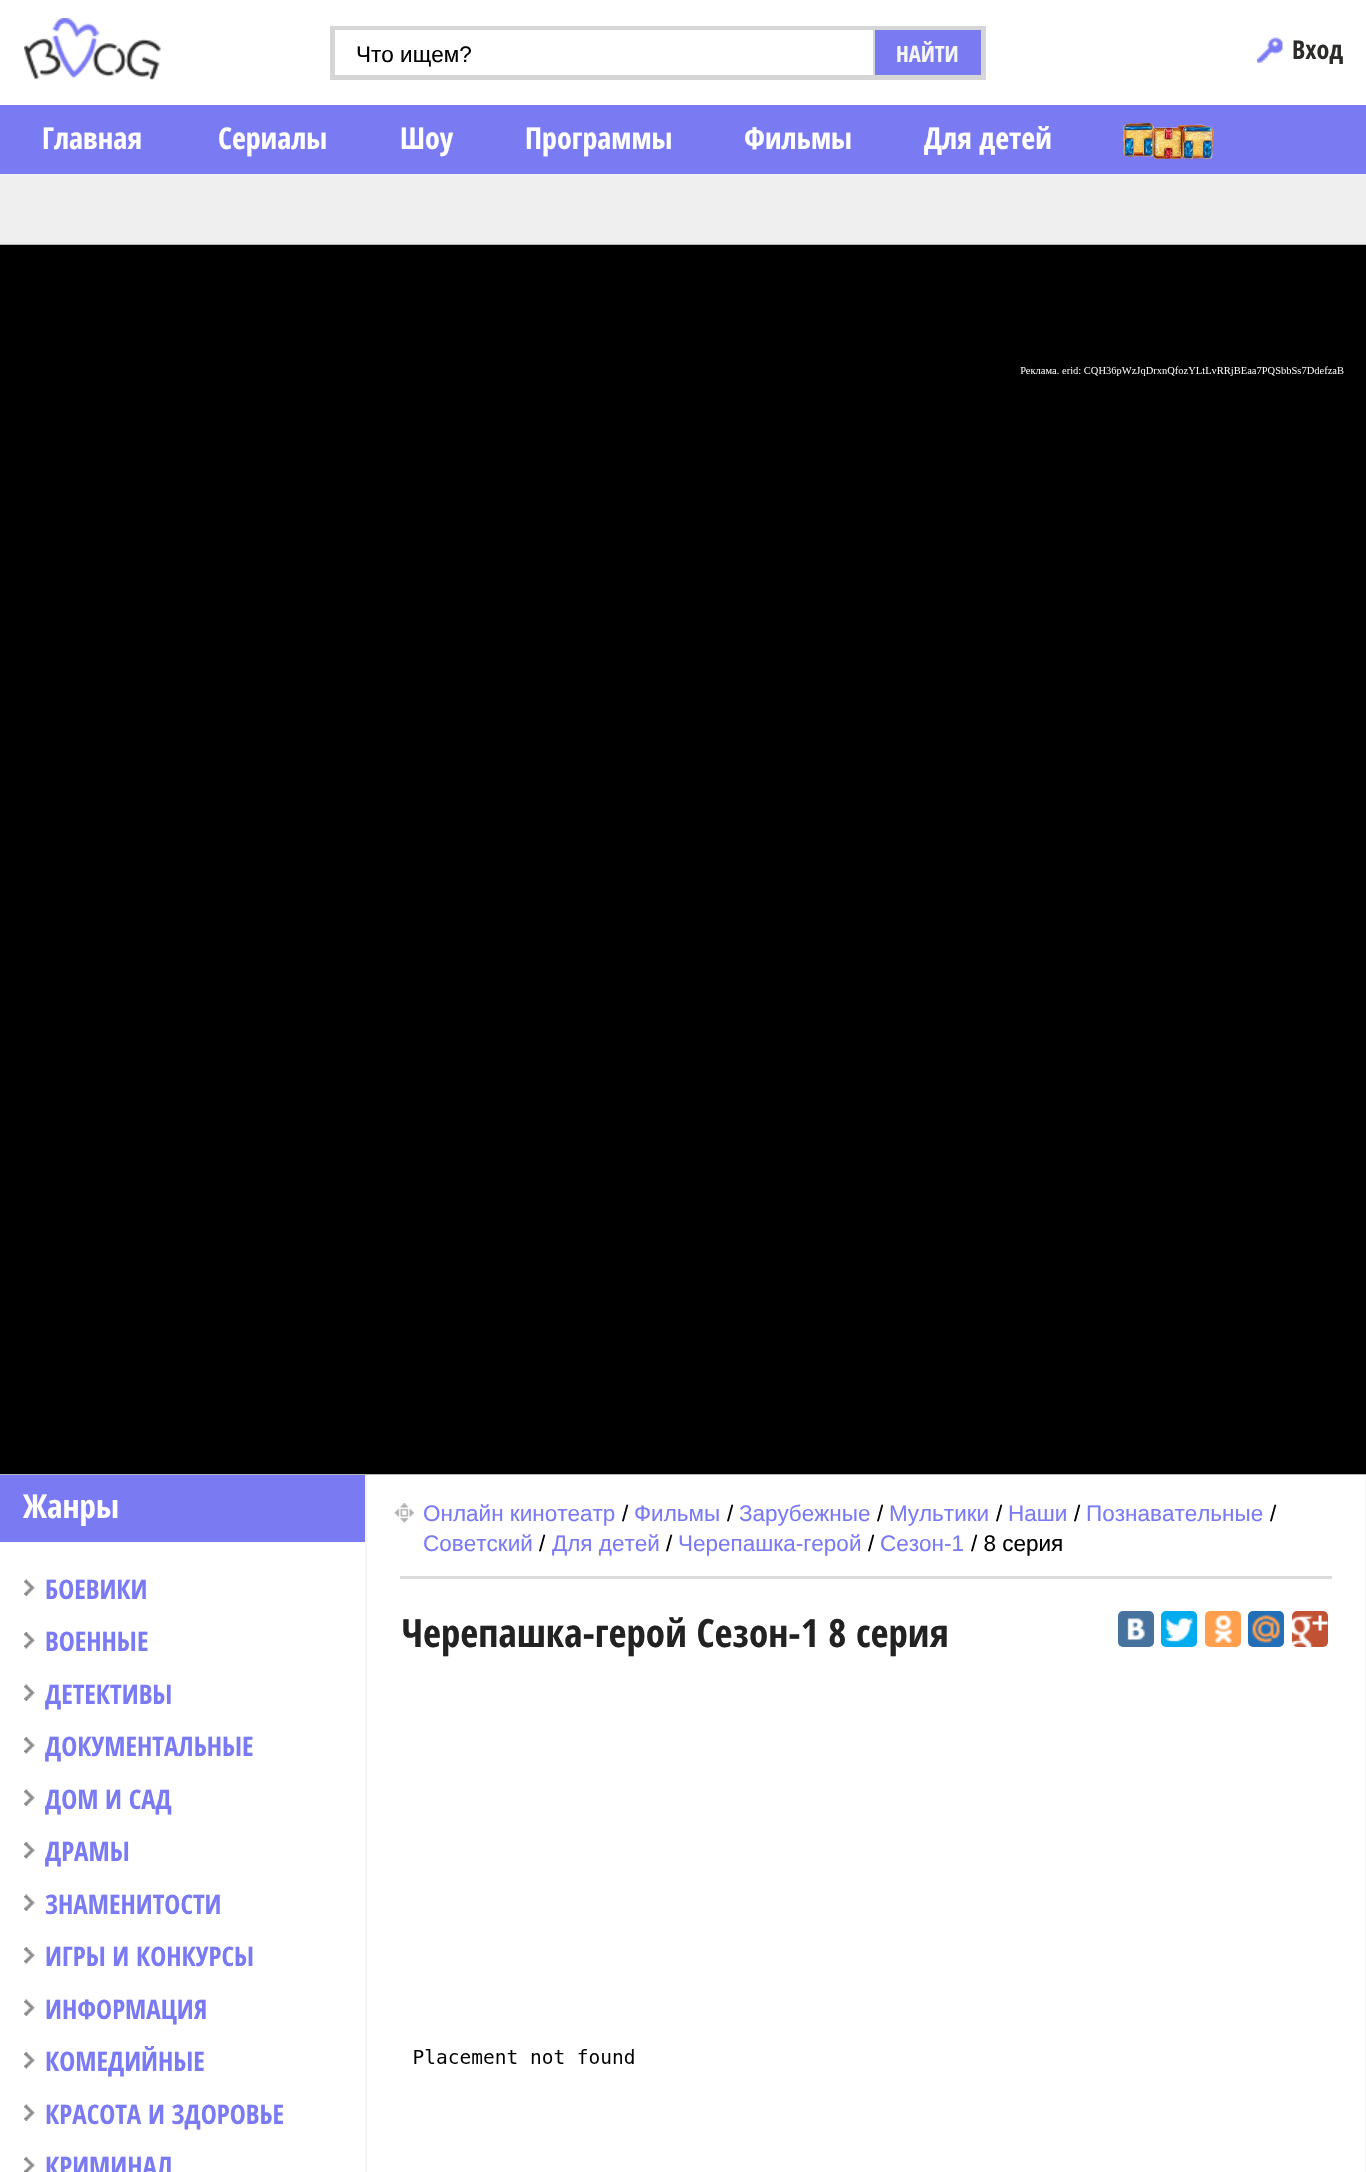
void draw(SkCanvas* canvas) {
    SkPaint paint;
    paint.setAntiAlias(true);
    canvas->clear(0xFFEFEFEF);
    paint.setColor(0xFFFFFFFF);
    canvas->drawRect(SkRect::MakeXYWH(0, 0, 1366, 105), paint);
    canvas->drawImageRect(SkImages::DeferredFromEncodedData(SkData::MakeFromFileName("img1.png")), SkRect::MakeXYWH(24, 18, 137, 62), SkSamplingOptions());
    paint.setColor(0xFFD6D6D6);
    canvas->drawRect(SkRect::MakeXYWH(330, 26, 656, 54), paint);
    paint.setColor(0xFFFFFFFF);
    canvas->drawRect(SkRect::MakeXYWH(335, 30, 538, 45), paint);
    SkFont font1(fontMgr->matchFamilyStyle("Liberation Sans", SkFontStyle::Normal()), 22.5f);
    font1.setSubpixel(true);
    paint.setColor(0xFF000000);
    canvas->drawString("Что ищем?", 356, 62, font1, paint);
    paint.setColor(0xFF7A7AF3);
    canvas->drawRect(SkRect::MakeXYWH(875, 30, 106, 45), paint);
    SkFont font2(fontMgr->matchFamilyStyle("Open Sans Condensed", SkFontStyle::Bold()), 22.5f);
    font2.setSubpixel(true);
    paint.setColor(0xFFF6F6F6);
    canvas->drawString("НАЙТИ", 896, 62, font2, paint);
    canvas->drawImageRect(SkImages::DeferredFromEncodedData(SkData::MakeFromFileName("img2.png")), SkRect::MakeXYWH(1257, 37, 26, 26), SkSamplingOptions());
    SkFont font3(fontMgr->matchFamilyStyle("Open Sans Condensed", SkFontStyle::Bold()), 26);
    font3.setSubpixel(true);
    paint.setColor(0xFF2C2C2B);
    canvas->drawString("Вход", 1292, 59, font3, paint);
    paint.setColor(0xFF7A7AF3);
    canvas->drawRect(SkRect::MakeXYWH(0, 105, 1366, 69), paint);
    SkFont font4(fontMgr->matchFamilyStyle("Open Sans Condensed", SkFontStyle::Bold()), 30);
    font4.setSubpixel(true);
    paint.setColor(0xFFFFFFFF);
    canvas->drawString("Главная", 42, 149, font4, paint);
    canvas->drawString("Сериалы", 218, 149, font4, paint);
    canvas->drawString("Шоу", 400, 149, font4, paint);
    canvas->drawString("Программы", 525, 149, font4, paint);
    canvas->drawString("Фильмы", 744, 149, font4, paint);
    canvas->drawString("Для детей", 924, 149, font4, paint);
    canvas->drawImageRect(SkImages::DeferredFromEncodedData(SkData::MakeFromFileName("img3.png")), SkRect::MakeXYWH(1123, 123, 91, 36), SkSamplingOptions());
    canvas->drawImageRect(SkImages::DeferredFromEncodedData(SkData::MakeFromFileName("img4.png")), SkRect::MakeXYWH(0, 244, 1366, 1231), SkSamplingOptions());
    canvas->drawRect(SkRect::MakeXYWH(0, 1475, 1365, 697), paint);
    paint.setColor(0xFFF6F6F6);
    canvas->drawRect(SkRect::MakeXYWH(1365, 1475, 1, 697), paint);
    paint.setColor(0xFF7A7AF3);
    canvas->drawRect(SkRect::MakeXYWH(0, 1475, 365, 67), paint);
    SkFont font5(fontMgr->matchFamilyStyle("Open Sans Condensed", SkFontStyle::Bold()), 33);
    font5.setSubpixel(true);
    paint.setColor(0xFFFFFFFF);
    canvas->drawString("Жанры", 23, 1518, font5, paint);
    canvas->drawImageRect(SkImages::DeferredFromEncodedData(SkData::MakeFromFileName("img5.png")), SkRect::MakeXYWH(24, 1579, 11, 17), SkSamplingOptions());
    SkFont font6(fontMgr->matchFamilyStyle("Open Sans Condensed", SkFontStyle::Bold()), 27);
    font6.setSubpixel(true);
    paint.setColor(0xFF7A7AF3);
    canvas->drawString("БОЕВИКИ", 45, 1599, font6, paint);
    canvas->drawImageRect(SkImages::DeferredFromEncodedData(SkData::MakeFromFileName("img6.png")), SkRect::MakeXYWH(24, 1632, 11, 17), SkSamplingOptions());
    canvas->drawString("ВОЕННЫЕ", 45, 1651, font6, paint);
    canvas->drawImageRect(SkImages::DeferredFromEncodedData(SkData::MakeFromFileName("img5.png")), SkRect::MakeXYWH(24, 1684, 11, 17), SkSamplingOptions());
    canvas->drawString("ДЕТЕКТИВЫ", 45, 1704, font6, paint);
    canvas->drawImageRect(SkImages::DeferredFromEncodedData(SkData::MakeFromFileName("img6.png")), SkRect::MakeXYWH(24, 1737, 11, 17), SkSamplingOptions());
    canvas->drawString("ДОКУМЕНТАЛЬНЫЕ", 45, 1756, font6, paint);
    canvas->drawImageRect(SkImages::DeferredFromEncodedData(SkData::MakeFromFileName("img5.png")), SkRect::MakeXYWH(24, 1789, 11, 17), SkSamplingOptions());
    canvas->drawString("ДОМ И САД", 45, 1809, font6, paint);
    canvas->drawImageRect(SkImages::DeferredFromEncodedData(SkData::MakeFromFileName("img6.png")), SkRect::MakeXYWH(24, 1842, 11, 17), SkSamplingOptions());
    canvas->drawString("ДРАМЫ", 45, 1861, font6, paint);
    canvas->drawImageRect(SkImages::DeferredFromEncodedData(SkData::MakeFromFileName("img5.png")), SkRect::MakeXYWH(24, 1894, 11, 17), SkSamplingOptions());
    canvas->drawString("ЗНАМЕНИТОСТИ", 45, 1914, font6, paint);
    canvas->drawImageRect(SkImages::DeferredFromEncodedData(SkData::MakeFromFileName("img6.png")), SkRect::MakeXYWH(24, 1947, 11, 17), SkSamplingOptions());
    canvas->drawString("ИГРЫ И КОНКУРСЫ", 45, 1966, font6, paint);
    canvas->drawImageRect(SkImages::DeferredFromEncodedData(SkData::MakeFromFileName("img5.png")), SkRect::MakeXYWH(24, 1999, 11, 17), SkSamplingOptions());
    canvas->drawString("ИНФОРМАЦИЯ", 45, 2019, font6, paint);
    canvas->drawImageRect(SkImages::DeferredFromEncodedData(SkData::MakeFromFileName("img6.png")), SkRect::MakeXYWH(24, 2052, 11, 17), SkSamplingOptions());
    canvas->drawString("КОМЕДИЙНЫЕ", 45, 2071, font6, paint);
    canvas->drawImageRect(SkImages::DeferredFromEncodedData(SkData::MakeFromFileName("img5.png")), SkRect::MakeXYWH(24, 2104, 11, 17), SkSamplingOptions());
    canvas->drawString("КРАСОТА И ЗДОРОВЬЕ", 45, 2124, font6, paint);
    canvas->drawImageRect(SkImages::DeferredFromEncodedData(SkData::MakeFromFileName("img7.png")), SkRect::MakeXYWH(24, 2157, 11, 15), SkSamplingOptions());
    canvas->drawString("КРИМИНАЛ", 45, 2176, font6, paint);
    paint.setColor(0xFFF6F6F6);
    canvas->drawRect(SkRect::MakeXYWH(365, 1475, 2, 697), paint);
    paint.setColor(0xFFDBDBDB);
    canvas->drawRect(SkRect::MakeXYWH(400, 1576, 932, 3), paint);
    canvas->drawImageRect(SkImages::DeferredFromEncodedData(SkData::MakeFromFileName("img8.png")), SkRect::MakeXYWH(394, 1503, 20, 20), SkSamplingOptions());
    paint.setColor(0xFF7A7AF3);
    canvas->drawString("Онлайн кинотеатр", 423, 1521, font1, paint);
    paint.setColor(0xFF000000);
    canvas->drawString("/", 622, 1521, font1, paint);
    paint.setColor(0xFF7A7AF3);
    canvas->drawString("Фильмы", 634, 1521, font1, paint);
    paint.setColor(0xFF000000);
    canvas->drawString("/", 727, 1521, font1, paint);
    paint.setColor(0xFF7A7AF3);
    canvas->drawString("Зарубежные", 739, 1521, font1, paint);
    paint.setColor(0xFF000000);
    canvas->drawString("/", 877, 1521, font1, paint);
    paint.setColor(0xFF7A7AF3);
    canvas->drawString("Мультики", 889, 1521, font1, paint);
    paint.setColor(0xFF000000);
    canvas->drawString("/", 996, 1521, font1, paint);
    paint.setColor(0xFF7A7AF3);
    canvas->drawString("Наши", 1008, 1521, font1, paint);
    paint.setColor(0xFF000000);
    canvas->drawString("/", 1074, 1521, font1, paint);
    paint.setColor(0xFF7A7AF3);
    canvas->drawString("Познавательные", 1086, 1521, font1, paint);
    paint.setColor(0xFF000000);
    canvas->drawString("/", 1270, 1521, font1, paint);
    paint.setColor(0xFF7A7AF3);
    canvas->drawString("Советский", 423, 1551, font1, paint);
    paint.setColor(0xFF000000);
    canvas->drawString("/", 539, 1551, font1, paint);
    paint.setColor(0xFF7A7AF3);
    canvas->drawString("Для детей", 552, 1551, font1, paint);
    paint.setColor(0xFF000000);
    canvas->drawString("/", 666, 1551, font1, paint);
    paint.setColor(0xFF7A7AF3);
    canvas->drawString("Черепашка-герой", 678, 1551, font1, paint);
    paint.setColor(0xFF000000);
    canvas->drawString("/", 868, 1551, font1, paint);
    paint.setColor(0xFF7A7AF3);
    canvas->drawString("Сезон-1", 880, 1551, font1, paint);
    paint.setColor(0xFF000000);
    canvas->drawString("/ 8 серия", 971, 1551, font1, paint);
    SkFont font7(fontMgr->matchFamilyStyle("Open Sans Condensed", SkFontStyle::Bold()), 39);
    font7.setSubpixel(true);
    paint.setColor(0xFF222223);
    canvas->drawString("Черепашка-герой Сезон-1 8 серия", 401, 1647, font7, paint);
    paint.setColor(0xFF48729E);
    canvas->drawRoundRect(SkRect::MakeXYWH(1118, 1611, 36, 36), 5, 5, paint);
    canvas->drawImageRect(SkImages::DeferredFromEncodedData(SkData::MakeFromFileName("img9.png")), SkRect::MakeXYWH(1127, 1618, 18, 22), SkSamplingOptions());
    paint.setColor(0xFF00ACED);
    canvas->drawRoundRect(SkRect::MakeXYWH(1161, 1611, 36, 36), 5, 5, paint);
    canvas->drawImageRect(SkImages::DeferredFromEncodedData(SkData::MakeFromFileName("img10.png")), SkRect::MakeXYWH(1165, 1618, 28, 24), SkSamplingOptions());
    paint.setColor(0xFFFF9F4D);
    canvas->drawRoundRect(SkRect::MakeXYWH(1205, 1611, 36, 36), 5, 5, paint);
    canvas->drawImageRect(SkImages::DeferredFromEncodedData(SkData::MakeFromFileName("img11.png")), SkRect::MakeXYWH(1214, 1615, 18, 28), SkSamplingOptions());
    paint.setColor(0xFF226EB7);
    canvas->drawRoundRect(SkRect::MakeXYWH(1248, 1611, 36, 36), 5, 5, paint);
    canvas->drawImageRect(SkImages::DeferredFromEncodedData(SkData::MakeFromFileName("img12.png")), SkRect::MakeXYWH(1252, 1615, 28, 28), SkSamplingOptions());
    paint.setColor(0xFFC25234);
    canvas->drawRoundRect(SkRect::MakeXYWH(1292, 1611, 36, 36), 5, 5, paint);
    canvas->drawImageRect(SkImages::DeferredFromEncodedData(SkData::MakeFromFileName("img13.png")), SkRect::MakeXYWH(1292, 1615, 36, 32), SkSamplingOptions());
    canvas->drawImageRect(SkImages::DeferredFromEncodedData(SkData::MakeFromFileName("img14.png")), SkRect::MakeXYWH(414, 2049, 220, 15), SkSamplingOptions());
}
